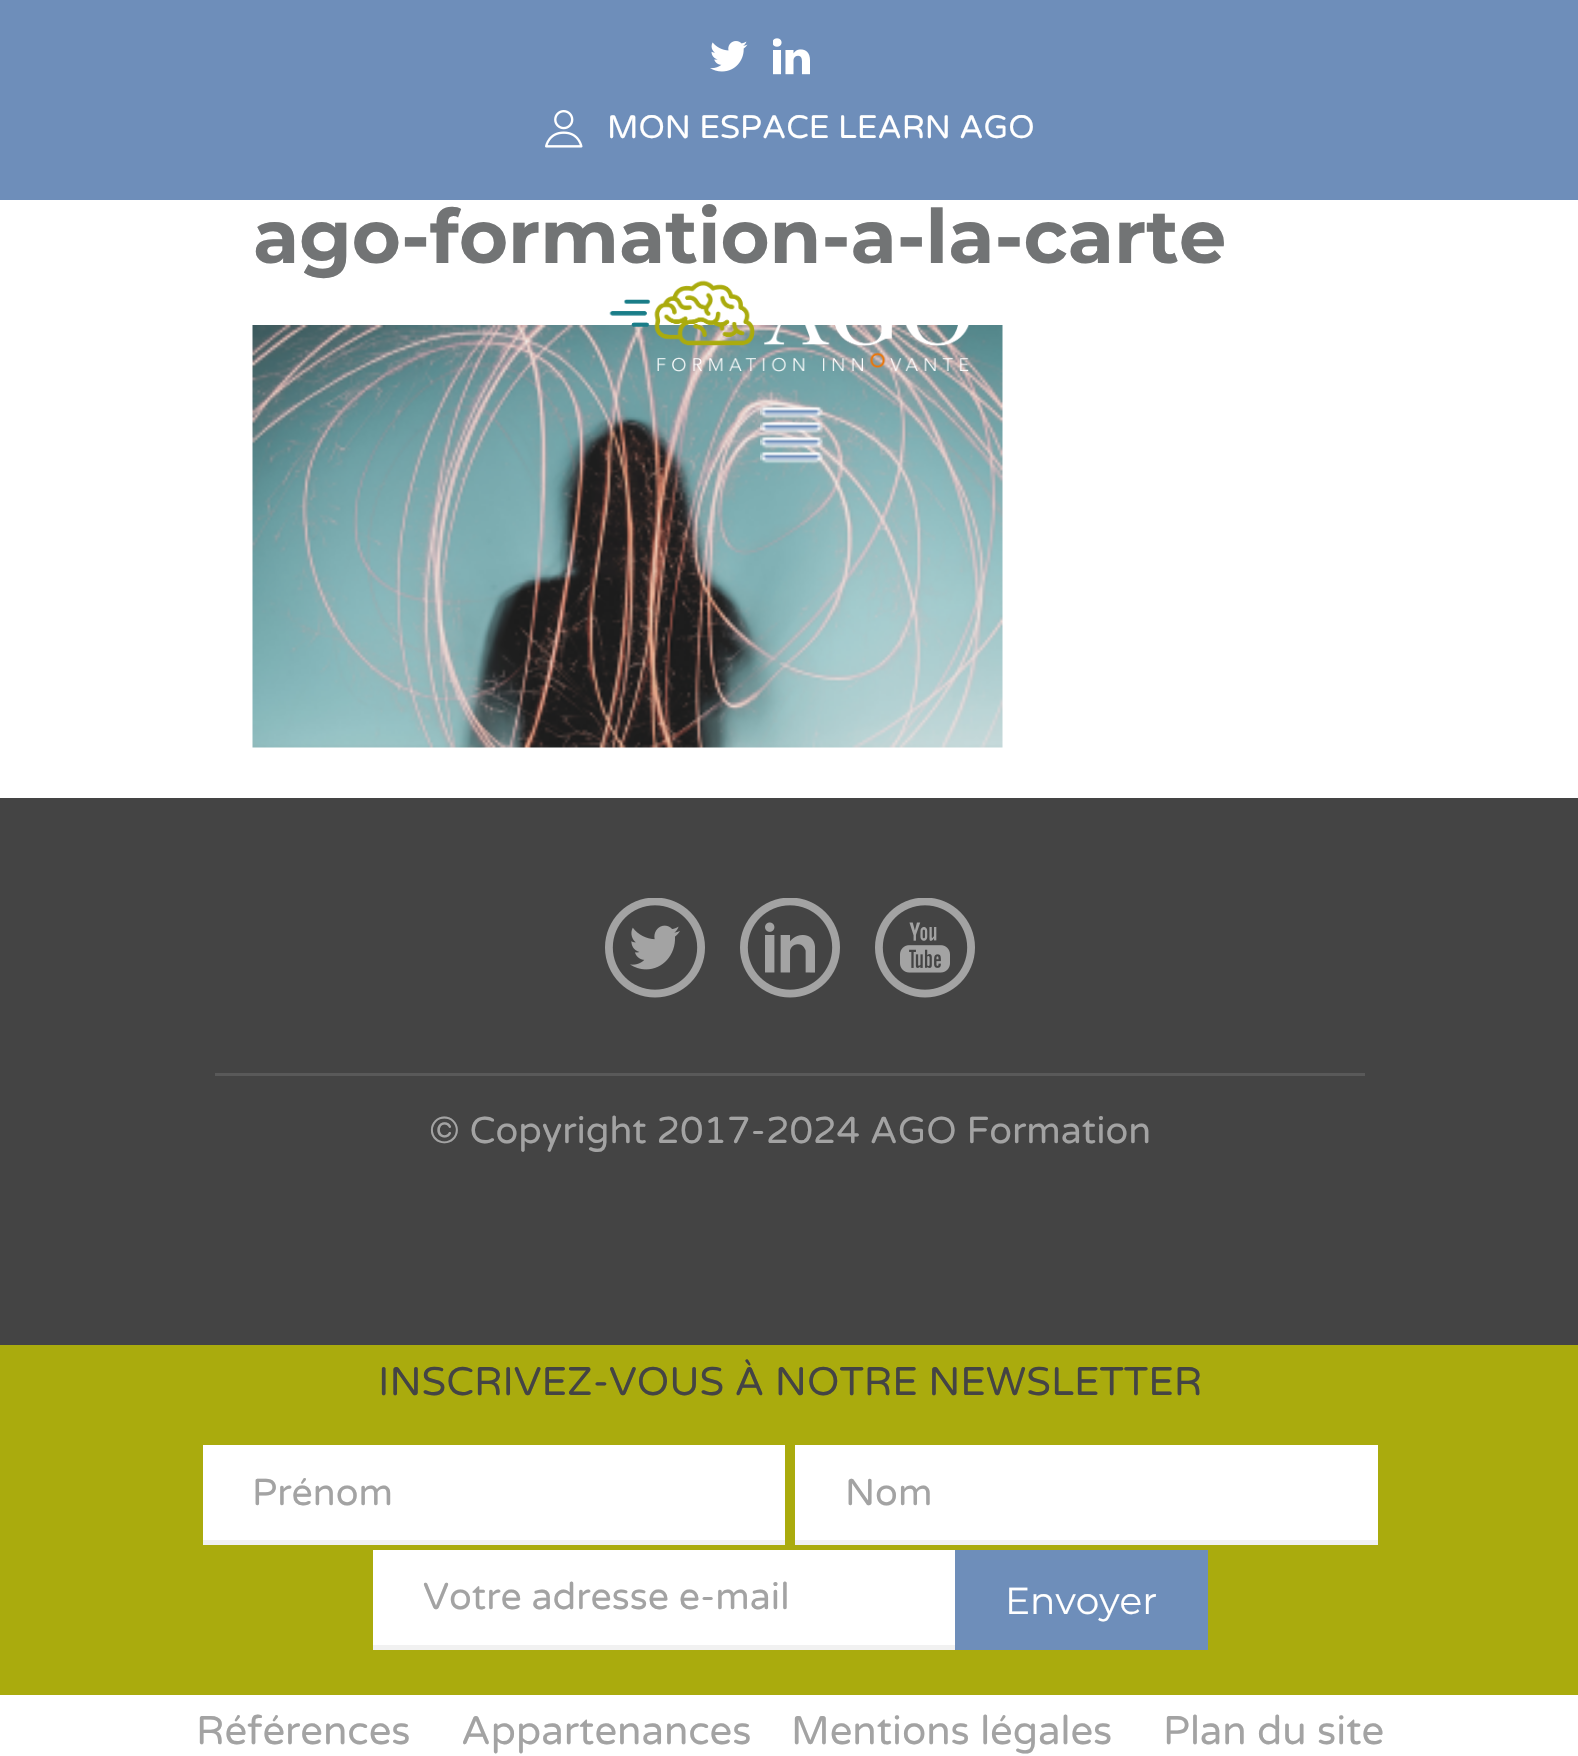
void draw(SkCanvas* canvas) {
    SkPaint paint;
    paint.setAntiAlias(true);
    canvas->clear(0xFFFFFFFF);
    paint.setColor(0xFF6E8EBA);
    canvas->drawRect(SkRect::MakeXYWH(0, 0, 1578, 200), paint);
    canvas->drawImageRect(SkImages::DeferredFromEncodedData(SkData::MakeFromFileName("img1.png")), SkRect::MakeXYWH(710, 41, 38, 31), SkSamplingOptions());
    canvas->drawImageRect(SkImages::DeferredFromEncodedData(SkData::MakeFromFileName("img2.png")), SkRect::MakeXYWH(773, 38, 37, 37), SkSamplingOptions());
    canvas->drawImageRect(SkImages::DeferredFromEncodedData(SkData::MakeFromFileName("img3.png")), SkRect::MakeXYWH(545, 110, 38, 38), SkSamplingOptions());
    SkFont font1(fontMgr->matchFamilyStyle("Varela Round", SkFontStyle::Normal()), 32.5f);
    font1.setSubpixel(true);
    paint.setColor(0xFFFFFFFF);
    canvas->drawString("MON ESPACE LEARN AGO", 607, 138, font1, paint);
    SkFont font2(fontMgr->matchFamilyStyle("Montserrat", SkFontStyle::Bold()), 75);
    font2.setSubpixel(true);
    paint.setColor(0xFF727475);
    canvas->drawString("ago-formation-a-la-carte", 253, 263, font2, paint);
    canvas->drawImageRect(SkImages::DeferredFromEncodedData(SkData::MakeFromFileName("img4.png")), SkRect::MakeXYWH(252, 325, 751, 423), SkSamplingOptions());
    canvas->drawImageRect(SkImages::DeferredFromEncodedData(SkData::MakeFromFileName("img5.png")), SkRect::MakeXYWH(609, 280, 361, 92), SkSamplingOptions());
    canvas->drawImageRect(SkImages::DeferredFromEncodedData(SkData::MakeFromFileName("img6.png")), SkRect::MakeXYWH(760, 406, 63, 58), SkSamplingOptions());
    paint.setColor(0xFF444444);
    canvas->drawRect(SkRect::MakeXYWH(0, 798, 1578, 547), paint);
    canvas->drawImageRect(SkImages::DeferredFromEncodedData(SkData::MakeFromFileName("img7.png")), SkRect::MakeXYWH(605, 898, 100, 100), SkSamplingOptions());
    canvas->drawImageRect(SkImages::DeferredFromEncodedData(SkData::MakeFromFileName("img8.png")), SkRect::MakeXYWH(740, 898, 100, 100), SkSamplingOptions());
    canvas->drawImageRect(SkImages::DeferredFromEncodedData(SkData::MakeFromFileName("img9.png")), SkRect::MakeXYWH(875, 898, 100, 100), SkSamplingOptions());
    paint.setColor(0xFF595959);
    canvas->drawRect(SkRect::MakeXYWH(215, 1073, 1150, 3), paint);
    SkFont font3(fontMgr->matchFamilyStyle("Varela Round", SkFontStyle::Normal()), 37.5f);
    font3.setSubpixel(true);
    paint.setColor(0xFFA3A3A3);
    canvas->drawString("© Copyright 2017-2024 AGO Formation", 429, 1143, font3, paint);
    paint.setColor(0xFFAAAB0D);
    canvas->drawRect(SkRect::MakeXYWH(0, 1345, 1578, 350), paint);
    SkFont font4(fontMgr->matchFamilyStyle("Varela Round", SkFontStyle::Normal()), 40);
    font4.setSubpixel(true);
    paint.setColor(0xFF444444);
    canvas->drawString("INSCRIVEZ-VOUS À NOTRE NEWSLETTER", 378, 1395, font4, paint);
    paint.setColor(0xFFFFFFFF);
    canvas->drawRect(SkRect::MakeXYWH(203, 1445, 582, 95), paint);
    paint.setColor(0xFFF1F1F1);
    canvas->drawRect(SkRect::MakeXYWH(203, 1540, 582, 5), paint);
    paint.setColor(0xFFA3A3A3);
    canvas->drawString("Prénom", 252, 1505, font3, paint);
    paint.setColor(0xFFFFFFFF);
    canvas->drawRect(SkRect::MakeXYWH(795, 1445, 583, 95), paint);
    paint.setColor(0xFFF1F1F1);
    canvas->drawRect(SkRect::MakeXYWH(795, 1540, 583, 5), paint);
    paint.setColor(0xFFA3A3A3);
    canvas->drawString("Nom", 845, 1505, font3, paint);
    paint.setColor(0xFFFFFFFF);
    canvas->drawRect(SkRect::MakeXYWH(373, 1550, 582, 95), paint);
    paint.setColor(0xFFF1F1F1);
    canvas->drawRect(SkRect::MakeXYWH(373, 1645, 582, 5), paint);
    paint.setColor(0xFFA3A3A3);
    canvas->drawString("Votre adresse e-mail", 423, 1609, font3, paint);
    paint.setColor(0xFF6E8EBA);
    canvas->drawRect(SkRect::MakeXYWH(955, 1550, 253, 100), paint);
    SkFont font5(fontMgr->matchFamilyStyle("Montserrat", SkFontStyle::Normal()), 37.5f);
    font5.setSubpixel(true);
    paint.setColor(0xFFFFFFFF);
    canvas->drawString("Envoyer", 1005, 1614, font5, paint);
    paint.setColor(0xFFA3A3A3);
    canvas->drawString("Références", 196, 1744, font4, paint);
    canvas->drawString("Appartenances", 461, 1744, font4, paint);
    canvas->drawString("Mentions légales", 791, 1744, font4, paint);
    canvas->drawString("Plan du site", 1163, 1744, font4, paint);
}
